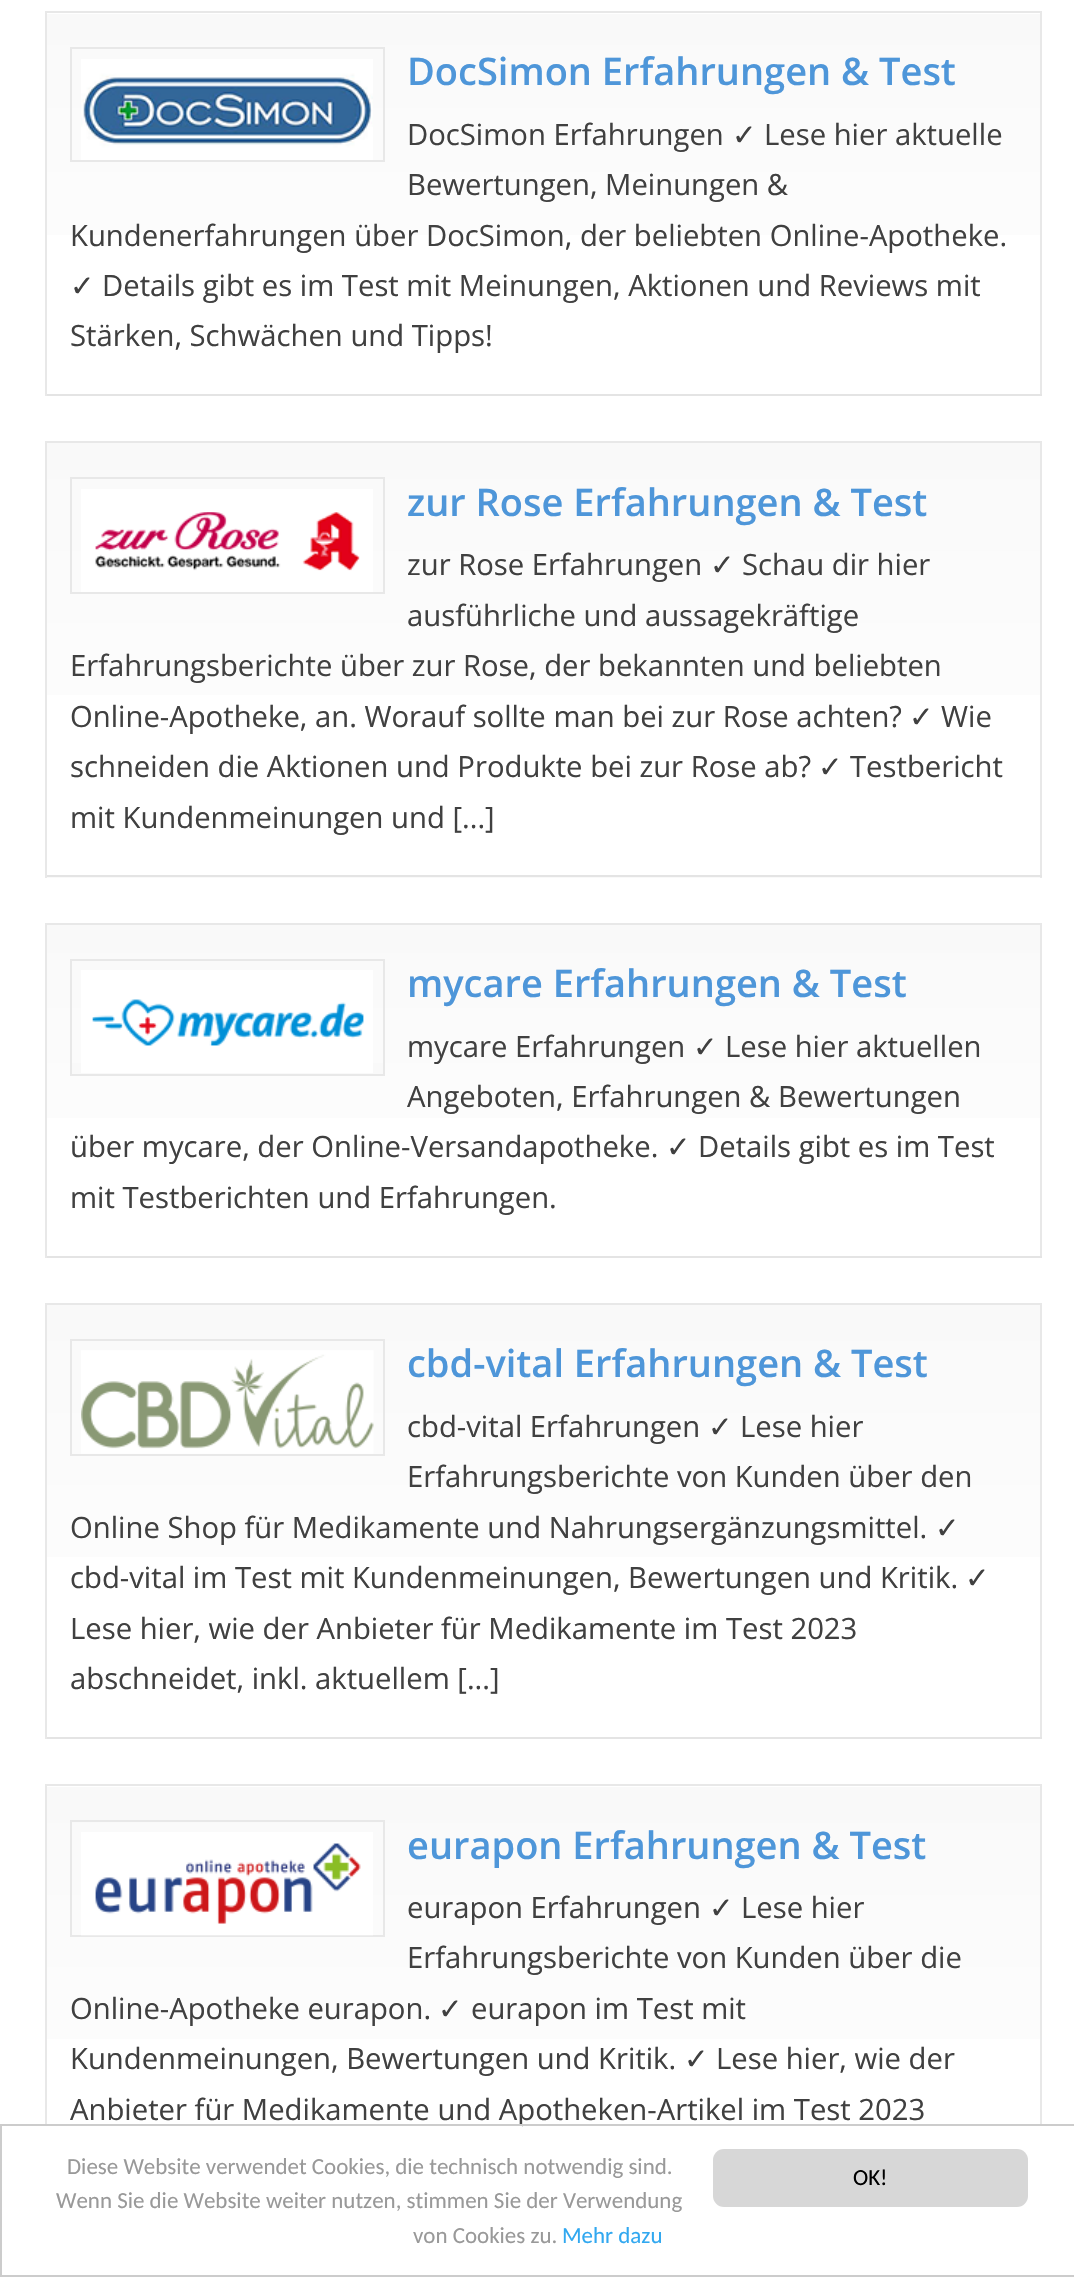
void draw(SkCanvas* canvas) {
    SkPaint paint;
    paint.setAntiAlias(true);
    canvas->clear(0xFFFFFFFF);
    {
        const SkColor colors[] = {0xFFF9F9F9, 0xFFFFFFFF};
        const float stops[] = {0, 1};
        const SkPoint ends[] = {{543, 13}, {543, 394}};
        paint.setShader(SkGradientShader::MakeLinear(ends, colors, stops, 2, SkTileMode::kClamp));
        paint.setAlpha(255);
    }
    canvas->drawRect(SkRect::MakeXYWH(47, 14, 993, 221), paint);
    paint.setShader(nullptr);
    paint.setColor(0xFFE8E8E8);
    canvas->drawRect(SkRect::MakeXYWH(45, 11, 997, 2), paint);
    canvas->drawRect(SkRect::MakeXYWH(1040, 11, 2, 385), paint);
    paint.setColor(0xFFE4E4E4);
    canvas->drawRect(SkRect::MakeXYWH(45, 394, 997, 2), paint);
    paint.setColor(0xFFE8E8E8);
    canvas->drawRect(SkRect::MakeXYWH(45, 11, 2, 385), paint);
    paint.setStyle(SkPaint::kStroke_Style);
    paint.setStrokeWidth(2);
    canvas->drawRect(SkRect::MakeXYWH(71, 48, 313, 113), paint);
    canvas->drawImageRect(SkImages::DeferredFromEncodedData(SkData::MakeFromFileName("img1.png")), SkRect::MakeXYWH(81, 59, 292, 101), SkSamplingOptions());
    SkFont font1(fontMgr->matchFamilyStyle("Open Sans", SkFontStyle(600, SkFontStyle::kNormal_Width, SkFontStyle::kUpright_Slant)), 38);
    font1.setSubpixel(true);
    paint.setStyle(SkPaint::kFill_Style);
    paint.setColor(0xFF4E96D9);
    canvas->drawString("DocSimon Erfahrungen & Test", 407, 85, font1, paint);
    SkFont font2(fontMgr->matchFamilyStyle("Open Sans", SkFontStyle::Normal()), 29.25f);
    font2.setSubpixel(true);
    paint.setColor(0xFF404040);
    canvas->drawString("DocSimon Erfahrungen", 407, 145, font2, paint);
    SkFont font3(fontMgr->matchFamilyStyle("DejaVu Sans", SkFontStyle::Normal()), 29.25f);
    font3.setSubpixel(true);
    canvas->drawString("✓", 732, 145, font3, paint);
    canvas->drawString("Lese hier aktuelle", 764, 145, font2, paint);
    canvas->drawString("Bewertungen, Meinungen &", 407, 195, font2, paint);
    canvas->drawString("Kundenerfahrungen über DocSimon, der beliebten Online-Apotheke.", 70, 246, font2, paint);
    canvas->drawString("✓", 70, 296, font3, paint);
    canvas->drawString("Details gibt es im Test mit Meinungen, Aktionen und Reviews mit", 102, 296, font2, paint);
    canvas->drawString("Stärken, Schwächen und Tipps!", 70, 346, font2, paint);
    {
        const SkColor colors[] = {0xFFF9F9F9, 0xFFFFFFFF};
        const float stops[] = {0, 1};
        const SkPoint ends[] = {{543, 443}, {543, 875}};
        paint.setShader(SkGradientShader::MakeLinear(ends, colors, stops, 2, SkTileMode::kClamp));
        paint.setAlpha(255);
    }
    canvas->drawRect(SkRect::MakeXYWH(47, 443, 993, 252), paint);
    {
        const SkColor colors[] = {0xFFF9F9F9, 0xFFFFFFFF};
        const float stops[] = {0, 1};
        const SkPoint ends[] = {{543, 875}, {543, 1307}};
        paint.setShader(SkGradientShader::MakeLinear(ends, colors, stops, 2, SkTileMode::kClamp));
        paint.setAlpha(255);
    }
    canvas->drawRect(SkRect::MakeXYWH(45, 877, 997, 1), paint);
    paint.setShader(nullptr);
    paint.setColor(0xFFE8E8E8);
    canvas->drawRect(SkRect::MakeXYWH(45, 441, 997, 2), paint);
    canvas->drawRect(SkRect::MakeXYWH(1040, 441, 2, 437), paint);
    paint.setColor(0xFFE4E4E4);
    canvas->drawRect(SkRect::MakeXYWH(45, 875, 997, 2), paint);
    paint.setColor(0xFFE8E8E8);
    canvas->drawRect(SkRect::MakeXYWH(45, 441, 2, 437), paint);
    paint.setStyle(SkPaint::kStroke_Style);
    canvas->drawRect(SkRect::MakeXYWH(71, 478, 313, 115), paint);
    canvas->drawImageRect(SkImages::DeferredFromEncodedData(SkData::MakeFromFileName("img2.png")), SkRect::MakeXYWH(81, 489, 292, 103), SkSamplingOptions());
    paint.setStyle(SkPaint::kFill_Style);
    paint.setColor(0xFF4E96D9);
    canvas->drawString("zur Rose Erfahrungen & Test", 407, 516, font1, paint);
    paint.setColor(0xFF404040);
    canvas->drawString("zur Rose Erfahrungen", 407, 575, font2, paint);
    canvas->drawString("✓", 710, 575, font3, paint);
    canvas->drawString("Schau dir hier", 742, 575, font2, paint);
    canvas->drawString("ausführliche und aussagekräftige", 407, 626, font2, paint);
    canvas->drawString("Erfahrungsberichte über zur Rose, der bekannten und beliebten", 70, 676, font2, paint);
    canvas->drawString("Online-Apotheke, an. Worauf sollte man bei zur Rose achten?", 70, 727, font2, paint);
    canvas->drawString("✓", 909, 727, font3, paint);
    canvas->drawString("Wie", 941, 727, font2, paint);
    canvas->drawString("schneiden die Aktionen und Produkte bei zur Rose ab?", 70, 777, font2, paint);
    canvas->drawString("✓", 818, 777, font3, paint);
    canvas->drawString("Testbericht", 850, 777, font2, paint);
    canvas->drawString("mit Kundenmeinungen und [...]", 70, 828, font2, paint);
    {
        const SkColor colors[] = {0xFFF9F9F9, 0xFFFFFFFF};
        const float stops[] = {0, 1};
        const SkPoint ends[] = {{543, 925}, {543, 1256}};
        paint.setShader(SkGradientShader::MakeLinear(ends, colors, stops, 2, SkTileMode::kClamp));
        paint.setAlpha(255);
    }
    canvas->drawRect(SkRect::MakeXYWH(47, 925, 993, 193), paint);
    paint.setShader(nullptr);
    paint.setColor(0xFFE8E8E8);
    canvas->drawRect(SkRect::MakeXYWH(45, 923, 997, 2), paint);
    canvas->drawRect(SkRect::MakeXYWH(1040, 923, 2, 335), paint);
    paint.setColor(0xFFE4E4E4);
    canvas->drawRect(SkRect::MakeXYWH(45, 1256, 997, 2), paint);
    paint.setColor(0xFFE8E8E8);
    canvas->drawRect(SkRect::MakeXYWH(45, 923, 2, 335), paint);
    paint.setColor(0xFFF9F9F9);
    canvas->drawRect(SkRect::MakeXYWH(72, 1063, 311, 11), paint);
    paint.setStyle(SkPaint::kStroke_Style);
    paint.setColor(0xFFE8E8E8);
    canvas->drawRect(SkRect::MakeXYWH(71, 960, 313, 115), paint);
    canvas->drawImageRect(SkImages::DeferredFromEncodedData(SkData::MakeFromFileName("img3.png")), SkRect::MakeXYWH(81, 970, 292, 103), SkSamplingOptions());
    paint.setStyle(SkPaint::kFill_Style);
    paint.setColor(0xFF4E96D9);
    canvas->drawString("mycare Erfahrungen & Test", 407, 997, font1, paint);
    paint.setColor(0xFF404040);
    canvas->drawString("mycare Erfahrungen", 407, 1057, font2, paint);
    canvas->drawString("✓", 693, 1057, font3, paint);
    canvas->drawString("Lese hier aktuellen", 725, 1057, font2, paint);
    canvas->drawString("Angeboten, Erfahrungen & Bewertungen", 407, 1107, font2, paint);
    canvas->drawString("über mycare, der Online-Versandapotheke.", 70, 1157, font2, paint);
    canvas->drawString("✓", 666, 1157, font3, paint);
    canvas->drawString("Details gibt es im Test", 698, 1157, font2, paint);
    canvas->drawString("mit Testberichten und Erfahrungen.", 70, 1208, font2, paint);
    {
        const SkColor colors[] = {0xFFF9F9F9, 0xFFFFFFFF};
        const float stops[] = {0, 1};
        const SkPoint ends[] = {{543, 1305}, {543, 1737}};
        paint.setShader(SkGradientShader::MakeLinear(ends, colors, stops, 2, SkTileMode::kClamp));
        paint.setAlpha(255);
    }
    canvas->drawRect(SkRect::MakeXYWH(47, 1305, 993, 252), paint);
    paint.setShader(nullptr);
    paint.setColor(0xFFE8E8E8);
    canvas->drawRect(SkRect::MakeXYWH(45, 1303, 997, 2), paint);
    canvas->drawRect(SkRect::MakeXYWH(1040, 1303, 2, 436), paint);
    paint.setColor(0xFFE4E4E4);
    canvas->drawRect(SkRect::MakeXYWH(45, 1737, 997, 2), paint);
    paint.setColor(0xFFE8E8E8);
    canvas->drawRect(SkRect::MakeXYWH(45, 1303, 2, 436), paint);
    paint.setStyle(SkPaint::kStroke_Style);
    canvas->drawRect(SkRect::MakeXYWH(71, 1340, 313, 115), paint);
    canvas->drawImageRect(SkImages::DeferredFromEncodedData(SkData::MakeFromFileName("img4.png")), SkRect::MakeXYWH(81, 1350, 293, 104), SkSamplingOptions());
    paint.setStyle(SkPaint::kFill_Style);
    paint.setColor(0xFF4E96D9);
    canvas->drawString("cbd-vital Erfahrungen & Test", 407, 1377, font1, paint);
    paint.setColor(0xFF404040);
    canvas->drawString("cbd-vital Erfahrungen", 407, 1437, font2, paint);
    canvas->drawString("✓", 708, 1437, font3, paint);
    canvas->drawString("Lese hier", 740, 1437, font2, paint);
    canvas->drawString("Erfahrungsberichte von Kunden über den", 407, 1487, font2, paint);
    canvas->drawString("Online Shop für Medikamente und Nahrungsergänzungsmittel.", 70, 1538, font2, paint);
    canvas->drawString("✓", 935, 1538, font3, paint);
    canvas->drawString("cbd-vital im Test mit Kundenmeinungen, Bewertungen und Kritik.", 70, 1588, font2, paint);
    canvas->drawString("✓", 965, 1588, font3, paint);
    canvas->drawString("Lese hier, wie der Anbieter für Medikamente im Test 2023", 70, 1639, font2, paint);
    canvas->drawString("abschneidet, inkl. aktuellem [...]", 70, 1689, font2, paint);
    {
        const SkColor colors[] = {0xFFF9F9F9, 0xFFFFFFFF};
        const float stops[] = {0, 1};
        const SkPoint ends[] = {{543, 1787}, {543, 2219}};
        paint.setShader(SkGradientShader::MakeLinear(ends, colors, stops, 2, SkTileMode::kClamp));
        paint.setAlpha(255);
    }
    canvas->drawRect(SkRect::MakeXYWH(47, 1787, 993, 252), paint);
    paint.setShader(nullptr);
    paint.setColor(0xFFE8E8E8);
    canvas->drawRect(SkRect::MakeXYWH(45, 1784, 997, 2), paint);
    canvas->drawRect(SkRect::MakeXYWH(1040, 1784, 2, 340), paint);
    canvas->drawRect(SkRect::MakeXYWH(45, 1784, 2, 340), paint);
    paint.setStyle(SkPaint::kStroke_Style);
    canvas->drawRect(SkRect::MakeXYWH(71, 1821, 313, 115), paint);
    canvas->drawImageRect(SkImages::DeferredFromEncodedData(SkData::MakeFromFileName("img5.png")), SkRect::MakeXYWH(81, 1832, 292, 104), SkSamplingOptions());
    paint.setStyle(SkPaint::kFill_Style);
    paint.setColor(0xFF4E96D9);
    canvas->drawString("eurapon Erfahrungen & Test", 407, 1859, font1, paint);
    paint.setColor(0xFF404040);
    canvas->drawString("eurapon Erfahrungen", 407, 1918, font2, paint);
    canvas->drawString("✓", 709, 1918, font3, paint);
    canvas->drawString("Lese hier", 741, 1918, font2, paint);
    canvas->drawString("Erfahrungsberichte von Kunden über die", 407, 1968, font2, paint);
    canvas->drawString("Online-Apotheke eurapon.", 70, 2019, font2, paint);
    canvas->drawString("✓", 438, 2019, font3, paint);
    canvas->drawString("eurapon im Test mit", 471, 2019, font2, paint);
    canvas->drawString("Kundenmeinungen, Bewertungen und Kritik.", 70, 2069, font2, paint);
    canvas->drawString("✓", 684, 2069, font3, paint);
    canvas->drawString("Lese hier, wie der", 716, 2069, font2, paint);
    canvas->drawString("Anbieter für Medikamente und Apotheken-Artikel im Test 2023", 70, 2120, font2, paint);
    paint.setColor(0xFFFFFFFF);
    canvas->drawRect(SkRect::MakeXYWH(519, 2126, 3, 1), paint);
    paint.setStyle(SkPaint::kStroke_Style);
    paint.setColor(0xFFCCCCCC);
    canvas->drawRect(SkRect::MakeXYWH(1, 2125, 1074, 151), paint);
    SkFont font4(fontMgr->matchFamilyStyle("Carlito", SkFontStyle::Normal()), 22.95f);
    font4.setSubpixel(true);
    paint.setStyle(SkPaint::kFill_Style);
    paint.setColor(0xFF999999);
    canvas->drawString("Diese Website verwendet Cookies, die technisch notwendig sind.", 67, 2174, font4, paint);
    canvas->drawString("Wenn Sie die Website weiter nutzen, stimmen Sie der Verwendung", 56, 2208, font4, paint);
    canvas->drawString("von Cookies zu.", 413, 2243, font4, paint);
    paint.setColor(0xFF31A8F0);
    canvas->drawString("Mehr dazu", 562, 2243, font4, paint);
    paint.setColor(0xFFD7D7D7);
    canvas->drawRoundRect(SkRect::MakeXYWH(713, 2149, 315, 58), 11, 11, paint);
    paint.setColor(0xFF000000);
    canvas->drawString("OK!", 853, 2185, font4, paint);
}
